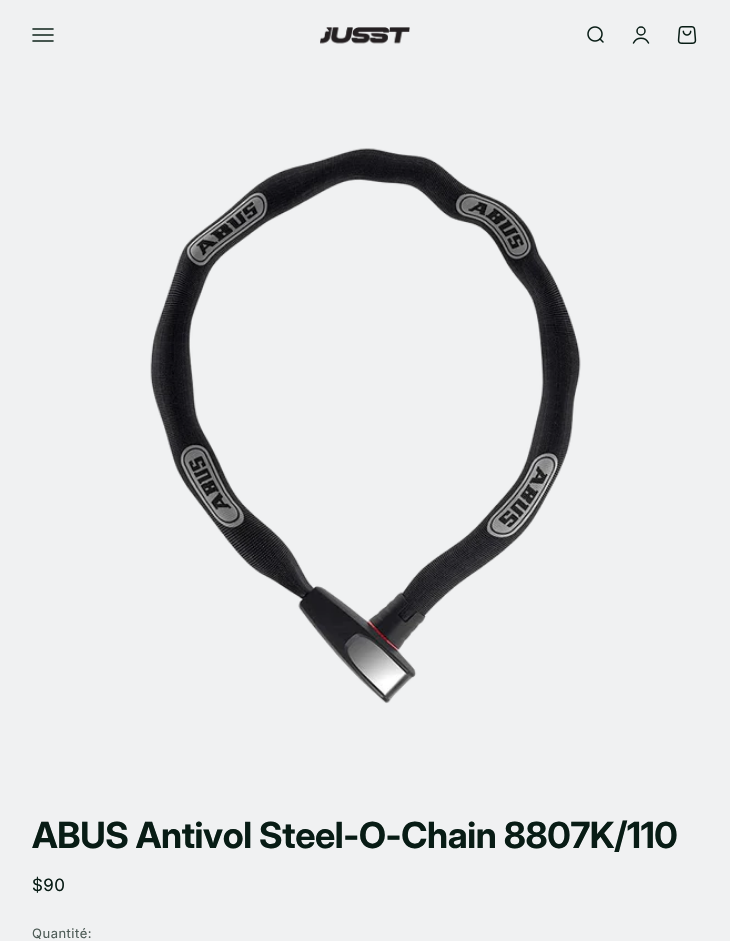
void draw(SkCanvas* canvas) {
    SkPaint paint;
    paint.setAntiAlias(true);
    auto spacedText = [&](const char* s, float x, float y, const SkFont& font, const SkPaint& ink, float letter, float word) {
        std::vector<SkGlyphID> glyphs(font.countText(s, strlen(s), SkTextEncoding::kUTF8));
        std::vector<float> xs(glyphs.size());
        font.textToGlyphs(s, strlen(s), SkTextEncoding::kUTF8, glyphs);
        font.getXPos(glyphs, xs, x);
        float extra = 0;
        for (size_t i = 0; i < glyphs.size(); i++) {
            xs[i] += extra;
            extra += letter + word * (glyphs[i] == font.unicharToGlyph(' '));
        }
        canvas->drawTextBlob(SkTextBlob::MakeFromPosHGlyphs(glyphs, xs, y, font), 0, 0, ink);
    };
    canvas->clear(0xFFF0F1F2);
    canvas->drawImageRect(SkImages::DeferredFromEncodedData(SkData::MakeFromFileName("img1.png")), SkRect::MakeXYWH(32, 28, 22, 14), SkSamplingOptions());
    canvas->drawImageRect(SkImages::DeferredFromEncodedData(SkData::MakeFromFileName("img2.png")), SkRect::MakeXYWH(320, 27, 90, 17), SkSamplingOptions());
    canvas->drawImageRect(SkImages::DeferredFromEncodedData(SkData::MakeFromFileName("img3.png")), SkRect::MakeXYWH(587, 26, 17, 17), SkSamplingOptions());
    paint.setStyle(SkPaint::kStroke_Style);
    paint.setStrokeWidth(1.5f);
    paint.setColor(0xFF081C15);
    canvas->drawCircle(641, 31, 4, paint);
    paint.setStrokeCap(SkPaint::kRound_Cap);
    canvas->drawPath(SkPathBuilder().moveTo(633.5f, 43).cubicTo(636.5f, 36.5f, 645.5f, 36.5f, 648.5f, 43).detach(), paint);
    canvas->drawImageRect(SkImages::DeferredFromEncodedData(SkData::MakeFromFileName("img4.png")), SkRect::MakeXYWH(677, 26, 20, 18), SkSamplingOptions());
    canvas->drawImageRect(SkImages::DeferredFromEncodedData(SkData::MakeFromFileName("img5.png")), SkRect::MakeXYWH(150, 148, 431, 556), SkSamplingOptions());
    SkFont font1(fontMgr->matchFamilyStyle("Inter", SkFontStyle::Bold()), 36);
    font1.setSubpixel(true);
    paint.setStyle(SkPaint::kFill_Style);
    spacedText("ABUS Antivol Steel-O-Chain 8807K/110", 32, 848, font1, paint, -0.35f, 0);
    SkFont font2(fontMgr->matchFamilyStyle("Inter", SkFontStyle::Normal()), 17);
    font2.setSubpixel(true);
    spacedText("$90", 32, 891, font2, paint, 0.5f, 0);
    SkFont font3(fontMgr->matchFamilyStyle("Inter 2", SkFontStyle::Normal()), 13);
    font3.setSubpixel(true);
    paint.setColor(0xFF4E5C57);
    spacedText("Quantité:", 32, 938, font3, paint, 0.5f, 0);
}
